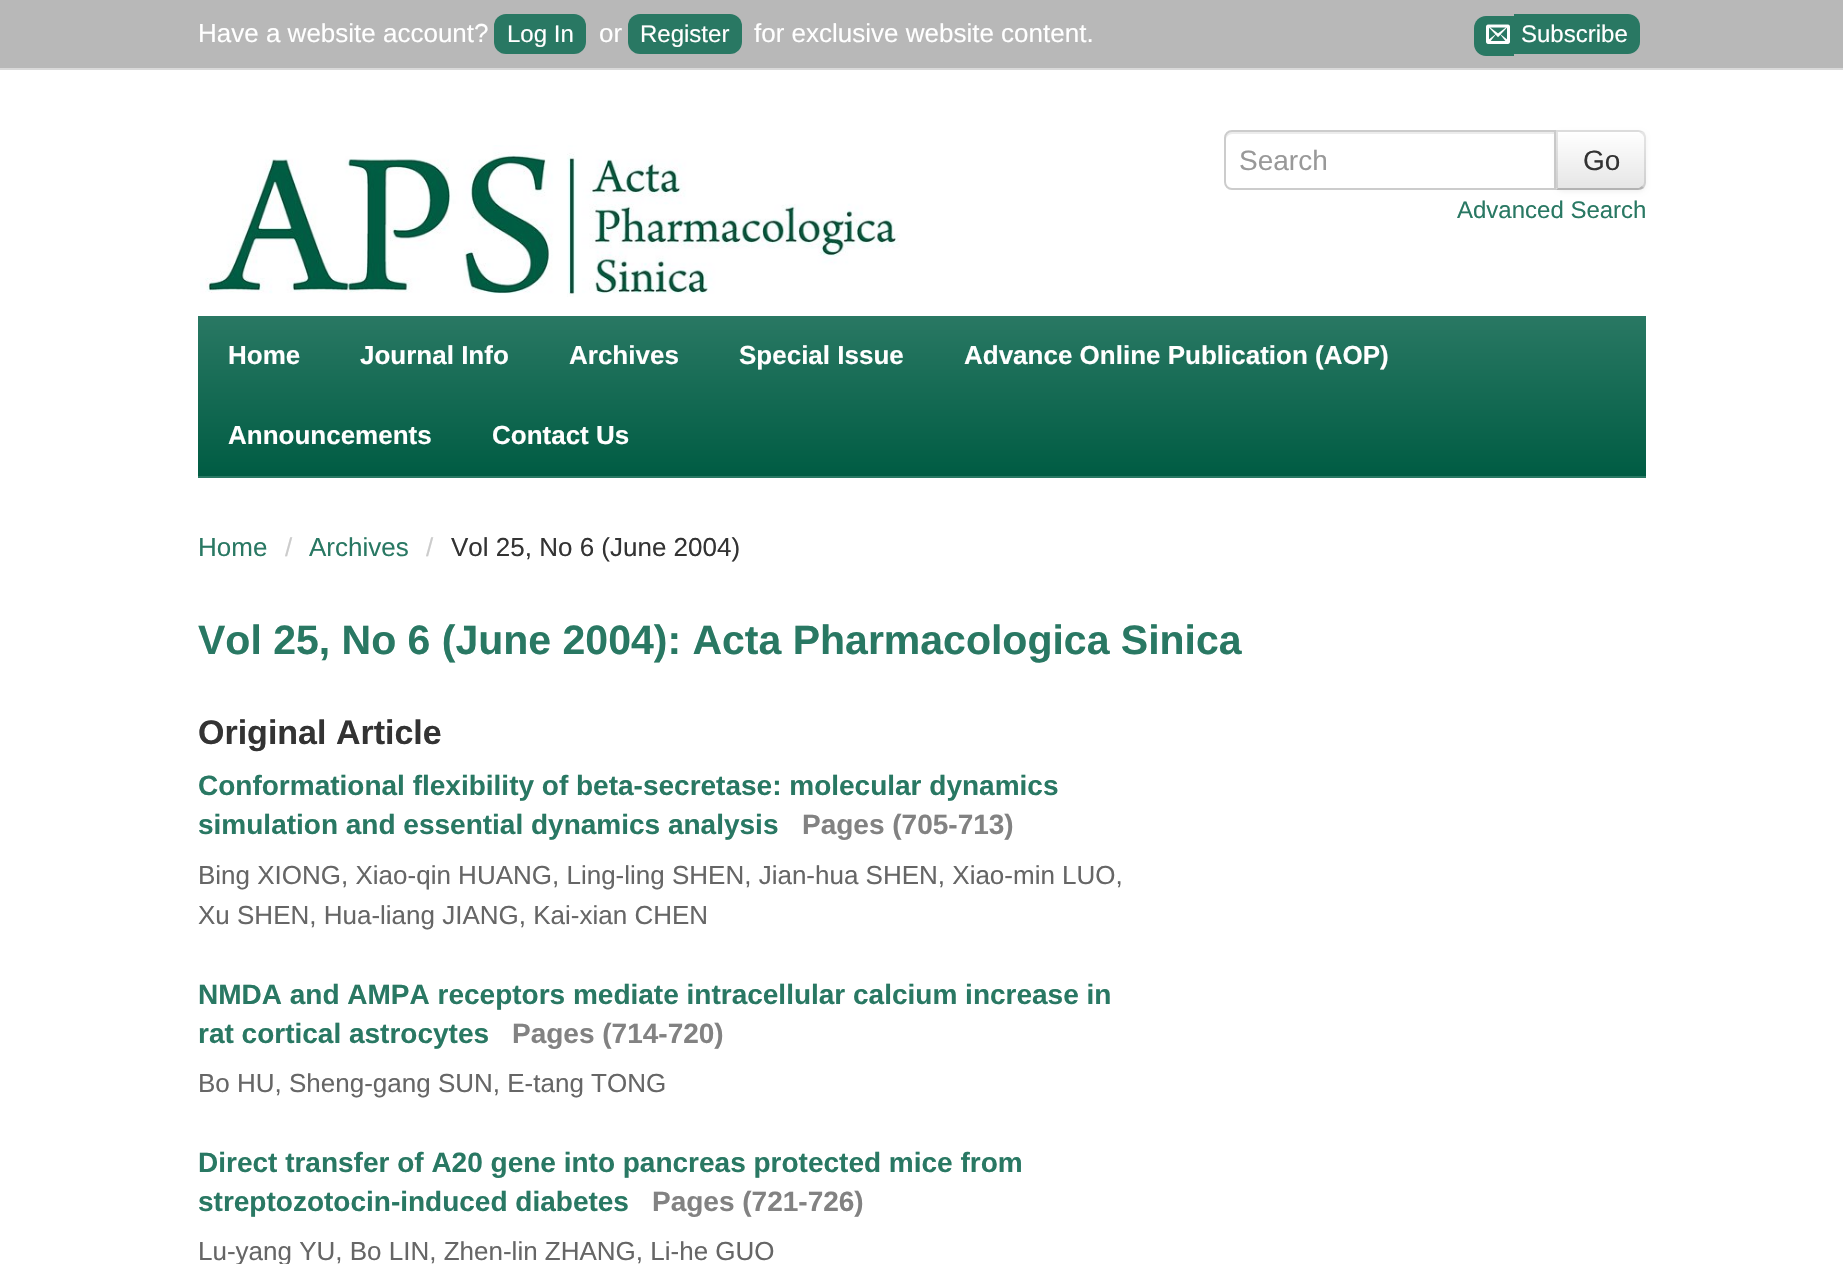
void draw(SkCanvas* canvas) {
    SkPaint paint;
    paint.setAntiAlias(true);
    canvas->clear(0xFFFFFFFF);
    paint.setColor(0xFFB8B8B8);
    canvas->drawRect(SkRect::MakeXYWH(0, 0, 1843, 68), paint);
    paint.setColor(0xFFD9D9D9);
    canvas->drawRect(SkRect::MakeXYWH(0, 68, 1843, 2), paint);
    SkFont font1(fontMgr->matchFamilyStyle("Liberation Sans", SkFontStyle::Normal()), 26);
    font1.setSubpixel(true);
    paint.setColor(0xFFFFFFFF);
    canvas->drawString("Have a website account?", 198, 42, font1, paint);
    paint.setColor(0xFF297863);
    canvas->drawRoundRect(SkRect::MakeXYWH(494, 14, 92, 40), 12, 12, paint);
    SkFont font2(fontMgr->matchFamilyStyle("Liberation Sans", SkFontStyle::Normal()), 24);
    font2.setSubpixel(true);
    paint.setColor(0xFFFFFFFF);
    canvas->drawString("Log In", 507, 42, font2, paint);
    canvas->drawString("or", 599, 42, font1, paint);
    paint.setColor(0xFF297863);
    canvas->drawRoundRect(SkRect::MakeXYWH(628, 14, 114, 40), 12, 12, paint);
    paint.setColor(0xFFFFFFFF);
    canvas->drawString("Register", 640, 42, font2, paint);
    canvas->drawString("for exclusive website content.", 754, 42, font1, paint);
    paint.setColor(0xFF297863);
    canvas->drawPath(SkPathBuilder().moveTo(1486, 16).lineTo(1514, 16).lineTo(1514, 56).lineTo(1486, 56).cubicTo(1479.5f, 56, 1474, 50.5f, 1474, 44).lineTo(1474, 28).cubicTo(1474, 21.5f, 1479.5f, 16, 1486, 16).close().detach(), paint);
    canvas->drawPath(SkPathBuilder().moveTo(1514, 14).lineTo(1628, 14).cubicTo(1634.5f, 14, 1640, 19.5f, 1640, 26).lineTo(1640, 42).cubicTo(1640, 48.5f, 1634.5f, 54, 1628, 54).lineTo(1514, 54).close().detach(), paint);
    canvas->drawImageRect(SkImages::DeferredFromEncodedData(SkData::MakeFromFileName("img1.png")), SkRect::MakeXYWH(1486, 24, 24, 20), SkSamplingOptions());
    paint.setColor(0xFFFFFFFF);
    canvas->drawString("Subscribe", 1521, 42, font2, paint);
    canvas->drawImageRect(SkImages::DeferredFromEncodedData(SkData::MakeFromFileName("img2.png")), SkRect::MakeXYWH(200, 145, 700, 152), SkSamplingOptions());
    paint.setColor(0xFFECECEC);
    canvas->drawPath(SkPathBuilder().moveTo(1232, 134).lineTo(1554, 134).lineTo(1554, 132).lineTo(1232, 132).cubicTo(1227, 132, 1226, 136, 1226, 140).cubicTo(1226, 137, 1229, 134, 1232, 134).close().detach(), paint);
    paint.setStyle(SkPaint::kStroke_Style);
    paint.setStrokeWidth(2);
    paint.setColor(0xFFCCCCCC);
    canvas->drawPath(SkPathBuilder().moveTo(1232, 131).lineTo(1555, 131).lineTo(1555, 189).lineTo(1232, 189).cubicTo(1228, 189, 1225, 186, 1225, 182).lineTo(1225, 138).cubicTo(1225, 134, 1228, 131, 1232, 131).close().detach(), paint);
    SkFont font3(fontMgr->matchFamilyStyle("Liberation Sans", SkFontStyle::Normal()), 28);
    font3.setSubpixel(true);
    paint.setStyle(SkPaint::kFill_Style);
    paint.setColor(0xFF999999);
    canvas->drawString("Search", 1239, 170, font3, paint);
    paint.setColor(0x0D000000);
    paint.setMaskFilter(SkMaskFilter::MakeBlur(kNormal_SkBlurStyle, 2));
    canvas->drawRoundRect(SkRect::MakeXYWH(1556, 132, 90, 60), 8, 8, paint);
    paint.setMaskFilter(nullptr);
    paint.setColor(0xFFF5F5F5);
    canvas->drawPath(SkPathBuilder().moveTo(1556, 130).lineTo(1638, 130).cubicTo(1642.5f, 130, 1646, 133.5f, 1646, 138).lineTo(1646, 182).cubicTo(1646, 186.5f, 1642.5f, 190, 1638, 190).lineTo(1556, 190).close().detach(), paint);
    canvas->save();
    canvas->clipPath(SkPathBuilder().moveTo(1556, 130).lineTo(1638, 130).cubicTo(1642.5f, 130, 1646, 133.5f, 1646, 138).lineTo(1646, 182).cubicTo(1646, 186.5f, 1642.5f, 190, 1638, 190).lineTo(1556, 190).close().detach(), true);
    {
        const SkColor colors[] = {0xFFFFFFFF, 0xFFE6E6E6};
        const float stops[] = {0, 1};
        const SkPoint ends[] = {{1601, 132}, {1601, 188}};
        paint.setShader(SkGradientShader::MakeLinear(ends, colors, stops, 2, SkTileMode::kClamp));
        paint.setAlpha(255);
    }
    canvas->drawRect(SkRect::MakeXYWH(1556, 132, 90, 56), paint);
    canvas->restore();
    paint.setShader(nullptr);
    paint.setColor(0x1A000000);
    canvas->drawPath(SkPathBuilder().moveTo(1556, 130).lineTo(1558, 132).lineTo(1639, 132).lineTo(1642, 134).lineTo(1644, 132).cubicTo(1642, 131, 1640, 130, 1638, 130).close().detach(), paint);
    canvas->drawPath(SkPathBuilder().moveTo(1646, 182).lineTo(1646, 138).cubicTo(1646, 136, 1645, 134, 1644, 132).lineTo(1642, 134).cubicTo(1643, 135, 1644, 136, 1644, 138).lineTo(1644, 182).cubicTo(1644, 184, 1643, 185, 1642, 186).lineTo(1644, 188).cubicTo(1645, 186, 1646, 184, 1646, 182).close().detach(), paint);
    paint.setColor(0xFFB3B3B3);
    canvas->drawPath(SkPathBuilder().moveTo(1638, 190).cubicTo(1640, 190, 1642, 189, 1644, 188).lineTo(1642, 186).lineTo(1639, 188).lineTo(1558, 188).lineTo(1556, 190).close().detach(), paint);
    paint.setColor(0x1A000000);
    canvas->drawPath(SkPathBuilder().moveTo(1556, 130).lineTo(1556, 190).lineTo(1558, 188).lineTo(1558, 132).close().detach(), paint);
    paint.setColor(0xFF333333);
    canvas->drawString("Go", 1583, 170, font3, paint);
    paint.setColor(0xFF297863);
    canvas->drawString("Advanced Search", 1457, 218, font2, paint);
    canvas->drawRect(SkRect::MakeXYWH(198, 476, 1448, 2), paint);
    {
        const SkColor colors[] = {0xFF297863, 0xFF005C43};
        const float stops[] = {0, 1};
        const SkPoint ends[] = {{922, 316}, {922, 476}};
        paint.setShader(SkGradientShader::MakeLinear(ends, colors, stops, 2, SkTileMode::kClamp));
        paint.setAlpha(255);
    }
    canvas->drawRect(SkRect::MakeXYWH(198, 316, 1448, 160), paint);
    SkFont font4(fontMgr->matchFamilyStyle("Liberation Sans", SkFontStyle::Bold()), 26);
    font4.setSubpixel(true);
    paint.setShader(nullptr);
    paint.setColor(0xFFFFFFFF);
    canvas->drawString("Home", 228, 364, font4, paint);
    canvas->drawString("Journal Info", 360, 364, font4, paint);
    canvas->drawString("Archives", 569, 364, font4, paint);
    canvas->drawString("Special Issue", 739, 364, font4, paint);
    canvas->drawString("Advance Online Publication (AOP)", 964, 364, font4, paint);
    canvas->drawString("Announcements", 228, 444, font4, paint);
    canvas->drawString("Contact Us", 492, 444, font4, paint);
    paint.setColor(0xFF297863);
    canvas->drawString("Home", 198, 556, font1, paint);
    paint.setColor(0xFFCCCCCC);
    canvas->drawString("/", 285, 556, font1, paint);
    paint.setColor(0xFF297863);
    canvas->drawString("Archives", 309, 556, font1, paint);
    paint.setColor(0xFFCCCCCC);
    canvas->drawString("/", 426, 556, font1, paint);
    paint.setColor(0xFF333333);
    canvas->drawString("Vol 25, No 6 (June 2004)", 451, 556, font1, paint);
    SkFont font5(fontMgr->matchFamilyStyle("Liberation Sans", SkFontStyle::Bold()), 41);
    font5.setSubpixel(true);
    paint.setColor(0xFF297863);
    canvas->drawString("Vol 25, No 6 (June 2004): Acta Pharmacologica Sinica", 198, 654, font5, paint);
    SkFont font6(fontMgr->matchFamilyStyle("Liberation Sans", SkFontStyle::Bold()), 34);
    font6.setSubpixel(true);
    paint.setColor(0xFF333333);
    canvas->drawString("Original Article", 198, 744, font6, paint);
    SkFont font7(fontMgr->matchFamilyStyle("Liberation Sans", SkFontStyle::Bold()), 28);
    font7.setSubpixel(true);
    paint.setColor(0xFF297863);
    canvas->drawString("Conformational flexibility of beta-secretase: molecular dynamics", 198, 795, font7, paint);
    canvas->drawString("simulation and essential dynamics analysis", 198, 834, font7, paint);
    paint.setColor(0xFF828282);
    canvas->drawString("Pages (705-713)", 802, 834, font7, paint);
    paint.setColor(0xFF666666);
    canvas->drawString("Bing XIONG, Xiao-qin HUANG, Ling-ling SHEN, Jian-hua SHEN, Xiao-min LUO,", 198, 884, font1, paint);
    canvas->drawString("Xu SHEN, Hua-liang JIANG, Kai-xian CHEN", 198, 924, font1, paint);
    paint.setColor(0xFF297863);
    canvas->drawString("NMDA and AMPA receptors mediate intracellular calcium increase in", 198, 1004, font7, paint);
    canvas->drawString("rat cortical astrocytes", 198, 1043, font7, paint);
    paint.setColor(0xFF828282);
    canvas->drawString("Pages (714-720)", 512, 1043, font7, paint);
    paint.setColor(0xFF666666);
    canvas->drawString("Bo HU, Sheng-gang SUN, E-tang TONG", 198, 1092, font1, paint);
    paint.setColor(0xFF297863);
    canvas->drawString("Direct transfer of A20 gene into pancreas protected mice from", 198, 1172, font7, paint);
    canvas->drawString("streptozotocin-induced diabetes", 198, 1211, font7, paint);
    paint.setColor(0xFF828282);
    canvas->drawString("Pages (721-726)", 652, 1211, font7, paint);
    paint.setColor(0xFF666666);
    canvas->drawString("Lu-yang YU, Bo LIN, Zhen-lin ZHANG, Li-he GUO", 198, 1260, font1, paint);
}
